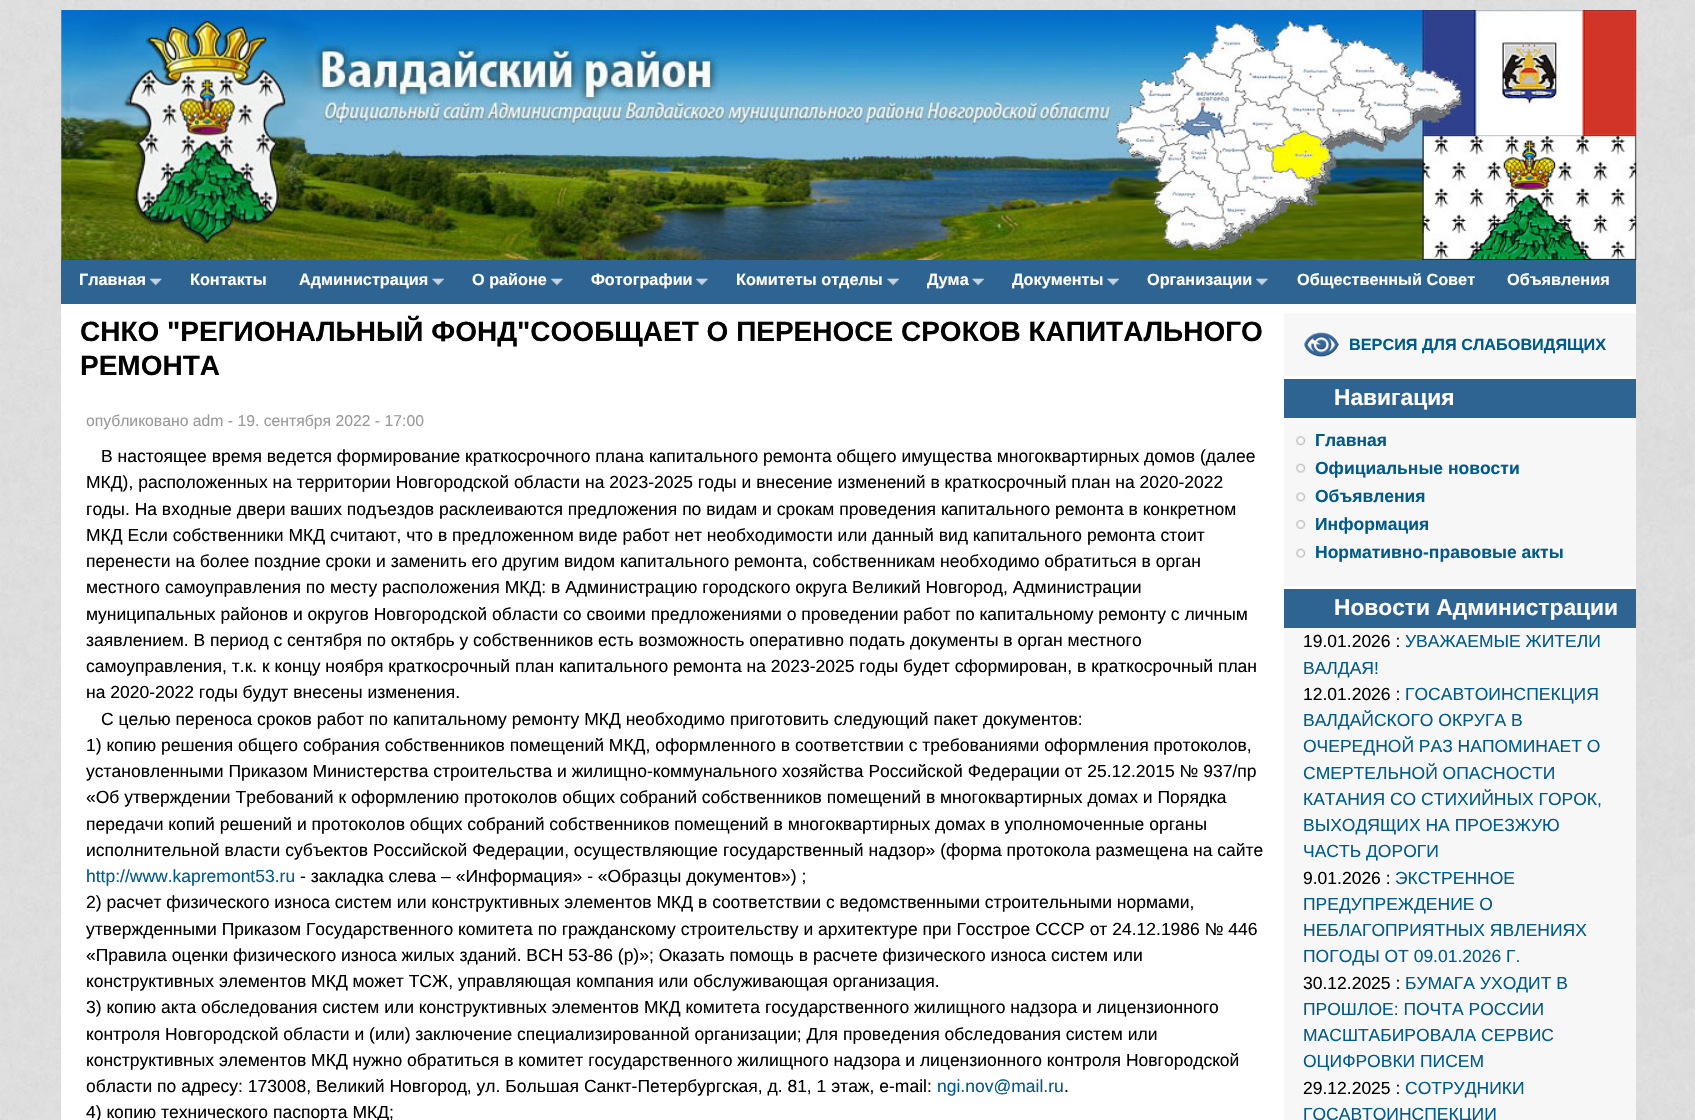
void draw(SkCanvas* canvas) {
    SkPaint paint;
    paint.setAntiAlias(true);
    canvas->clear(0xFFFFFFFF);
    canvas->drawImageRect(SkImages::DeferredFromEncodedData(SkData::MakeFromFileName("img1.png")), SkRect::MakeXYWH(0, 0, 1695, 1120), SkSamplingOptions());
    canvas->drawImageRect(SkImages::DeferredFromEncodedData(SkData::MakeFromFileName("img2.png")), SkRect::MakeXYWH(61, 10, 1576, 250), SkSamplingOptions());
    paint.setColor(0xFF2E6492);
    canvas->drawRect(SkRect::MakeXYWH(61, 260, 1575, 44), paint);
    SkFont font1(fontMgr->matchFamilyStyle("Liberation Sans", SkFontStyle::Bold()), 16.25f);
    font1.setSubpixel(true);
    paint.setColor(0xFFFFFFFF);
    canvas->drawString("Главная", 79, 285, font1, paint);
    canvas->drawImageRect(SkImages::DeferredFromEncodedData(SkData::MakeFromFileName("img3.png")), SkRect::MakeXYWH(149, 278, 13, 8), SkSamplingOptions());
    canvas->drawImageRect(SkImages::DeferredFromEncodedData(SkData::MakeFromFileName("img4.png")), SkRect::MakeXYWH(149, 278, 13, 8), SkSamplingOptions());
    canvas->drawString("Контакты", 190, 285, font1, paint);
    canvas->drawString("Администрация", 299, 285, font1, paint);
    canvas->drawImageRect(SkImages::DeferredFromEncodedData(SkData::MakeFromFileName("img5.png")), SkRect::MakeXYWH(432, 278, 12, 8), SkSamplingOptions());
    canvas->drawImageRect(SkImages::DeferredFromEncodedData(SkData::MakeFromFileName("img6.png")), SkRect::MakeXYWH(432, 278, 12, 8), SkSamplingOptions());
    canvas->drawString("О районе", 472, 285, font1, paint);
    canvas->drawImageRect(SkImages::DeferredFromEncodedData(SkData::MakeFromFileName("img7.png")), SkRect::MakeXYWH(551, 278, 12, 8), SkSamplingOptions());
    canvas->drawImageRect(SkImages::DeferredFromEncodedData(SkData::MakeFromFileName("img8.png")), SkRect::MakeXYWH(551, 278, 12, 8), SkSamplingOptions());
    canvas->drawString("Фотографии", 591, 285, font1, paint);
    canvas->drawImageRect(SkImages::DeferredFromEncodedData(SkData::MakeFromFileName("img7.png")), SkRect::MakeXYWH(696, 278, 12, 8), SkSamplingOptions());
    canvas->drawImageRect(SkImages::DeferredFromEncodedData(SkData::MakeFromFileName("img8.png")), SkRect::MakeXYWH(696, 278, 12, 8), SkSamplingOptions());
    canvas->drawString("Комитеты отделы", 736, 285, font1, paint);
    canvas->drawImageRect(SkImages::DeferredFromEncodedData(SkData::MakeFromFileName("img5.png")), SkRect::MakeXYWH(887, 278, 12, 8), SkSamplingOptions());
    canvas->drawImageRect(SkImages::DeferredFromEncodedData(SkData::MakeFromFileName("img6.png")), SkRect::MakeXYWH(887, 278, 12, 8), SkSamplingOptions());
    canvas->drawString("Дума", 927, 285, font1, paint);
    canvas->drawImageRect(SkImages::DeferredFromEncodedData(SkData::MakeFromFileName("img5.png")), SkRect::MakeXYWH(972, 278, 12, 8), SkSamplingOptions());
    canvas->drawImageRect(SkImages::DeferredFromEncodedData(SkData::MakeFromFileName("img6.png")), SkRect::MakeXYWH(972, 278, 12, 8), SkSamplingOptions());
    canvas->drawString("Документы", 1012, 285, font1, paint);
    canvas->drawImageRect(SkImages::DeferredFromEncodedData(SkData::MakeFromFileName("img5.png")), SkRect::MakeXYWH(1107, 278, 12, 8), SkSamplingOptions());
    canvas->drawImageRect(SkImages::DeferredFromEncodedData(SkData::MakeFromFileName("img6.png")), SkRect::MakeXYWH(1107, 278, 12, 8), SkSamplingOptions());
    canvas->drawString("Организации", 1147, 285, font1, paint);
    canvas->drawImageRect(SkImages::DeferredFromEncodedData(SkData::MakeFromFileName("img9.png")), SkRect::MakeXYWH(1256, 278, 12, 8), SkSamplingOptions());
    canvas->drawImageRect(SkImages::DeferredFromEncodedData(SkData::MakeFromFileName("img10.png")), SkRect::MakeXYWH(1256, 278, 12, 8), SkSamplingOptions());
    canvas->drawString("Общественный Совет", 1297, 285, font1, paint);
    canvas->drawString("Объявления", 1507, 285, font1, paint);
    canvas->drawRect(SkRect::MakeXYWH(61, 304, 1575, 816), paint);
    SkFont font2(fontMgr->matchFamilyStyle("Liberation Sans", SkFontStyle::Bold()), 28);
    font2.setSubpixel(true);
    paint.setColor(0xFF000000);
    canvas->drawString("СНКО \"РЕГИОНАЛЬНЫЙ ФОНД\"СООБЩАЕТ О ПЕРЕНОСЕ СРОКОВ КАПИТАЛЬНОГО", 80, 341, font2, paint);
    canvas->drawString("РЕМОНТА", 80, 375, font2, paint);
    SkFont font3(fontMgr->matchFamilyStyle("Liberation Sans", SkFontStyle::Normal()), 15.75f);
    font3.setSubpixel(true);
    paint.setColor(0xFF999999);
    canvas->drawString("опубликовано adm - 19. сентября 2022 - 17:00", 86, 426, font3, paint);
    SkFont font4(fontMgr->matchFamilyStyle("Liberation Sans", SkFontStyle::Normal()), 17.5f);
    font4.setSubpixel(true);
    paint.setColor(0xFF000000);
    canvas->drawString("В настоящее время ведется формирование краткосрочного плана капитального ремонта общего имущества многоквартирных домов (далее", 101, 462, font4, paint);
    canvas->drawString("МКД), расположенных на территории Новгородской области на 2023-2025 годы и внесение изменений в краткосрочный план на 2020-2022", 86, 488, font4, paint);
    canvas->drawString("годы. На входные двери ваших подъездов расклеиваются предложения по видам и срокам проведения капитального ремонта в конкретном", 86, 515, font4, paint);
    canvas->drawString("МКД Если собственники МКД считают, что в предложенном виде работ нет необходимости или данный вид капитального ремонта стоит", 86, 541, font4, paint);
    canvas->drawString("перенести на более поздние сроки и заменить его другим видом капитального ремонта, собственникам необходимо обратиться в орган", 86, 567, font4, paint);
    canvas->drawString("местного самоуправления по месту расположения МКД: в Администрацию городского округа Великий Новгород, Администрации", 86, 593, font4, paint);
    canvas->drawString("муниципальных районов и округов Новгородской области со своими предложениями о проведении работ по капитальному ремонту с личным", 86, 620, font4, paint);
    canvas->drawString("заявлением. В период с сентября по октябрь у собственников есть возможность оперативно подать документы в орган местного", 86, 646, font4, paint);
    canvas->drawString("самоуправления, т.к. к концу ноября краткосрочный план капитального ремонта на 2023-2025 годы будет сформирован, в краткосрочный план", 86, 672, font4, paint);
    canvas->drawString("на 2020-2022 годы будут внесены изменения.", 86, 698, font4, paint);
    canvas->drawString("С целью переноса сроков работ по капитальному ремонту МКД необходимо приготовить следующий пакет документов:", 101, 725, font4, paint);
    canvas->drawString("1) копию решения общего собрания собственников помещений МКД, оформленного в соответствии с требованиями оформления протоколов,", 86, 751, font4, paint);
    canvas->drawString("установленными Приказом Министерства строительства и жилищно-коммунального хозяйства Российской Федерации от 25.12.2015 № 937/пр", 86, 777, font4, paint);
    canvas->drawString("«Об утверждении Требований к оформлению протоколов общих собраний собственников помещений в многоквартирных домах и Порядка", 86, 803, font4, paint);
    canvas->drawString("передачи копий решений и протоколов общих собраний собственников помещений в многоквартирных домах в уполномоченные органы", 86, 830, font4, paint);
    canvas->drawString("исполнительной власти субъектов Российской Федерации, осуществляющие государственный надзор» (форма протокола размещена на сайте", 86, 856, font4, paint);
    paint.setColor(0xFF005A8C);
    canvas->drawString("http://www.kapremont53.ru", 86, 882, font4, paint);
    paint.setColor(0xFF000000);
    canvas->drawString("- закладка слева – «Информация» - «Образцы документов») ;", 300, 882, font4, paint);
    canvas->drawString("2) расчет физического износа систем или конструктивных элементов МКД в соответствии с ведомственными строительными нормами,", 86, 908, font4, paint);
    canvas->drawString("утвержденными Приказом Государственного комитета по гражданскому строительству и архитектуре при Госстрое СССР от 24.12.1986 № 446", 86, 935, font4, paint);
    canvas->drawString("«Правила оценки физического износа жилых зданий. ВСН 53-86 (р)»; Оказать помощь в расчете физического износа систем или", 86, 961, font4, paint);
    canvas->drawString("конструктивных элементов МКД может ТСЖ, управляющая компания или обслуживающая организация.", 86, 987, font4, paint);
    canvas->drawString("3) копию акта обследования систем или конструктивных элементов МКД комитета государственного жилищного надзора и лицензионного", 86, 1013, font4, paint);
    canvas->drawString("контроля Новгородской области и (или) заключение специализированной организации; Для проведения обследования систем или", 86, 1040, font4, paint);
    canvas->drawString("конструктивных элементов МКД нужно обратиться в комитет государственного жилищного надзора и лицензионного контроля Новгородской", 86, 1066, font4, paint);
    canvas->drawString("области по адресу: 173008, Великий Новгород, ул. Большая Санкт-Петербургская, д. 81, 1 этаж, е-mail:", 86, 1092, font4, paint);
    paint.setColor(0xFF005A8C);
    canvas->drawString("ngi.nov@mail.ru", 937, 1092, font4, paint);
    paint.setColor(0xFF000000);
    canvas->drawString(".", 1064, 1092, font4, paint);
    canvas->drawString("4) копию технического паспорта МКД;", 86, 1118, font4, paint);
    paint.setColor(0xFFF7F7F7);
    canvas->drawRect(SkRect::MakeXYWH(1284, 313, 352, 63), paint);
    canvas->drawImageRect(SkImages::DeferredFromEncodedData(SkData::MakeFromFileName("img11.png")), SkRect::MakeXYWH(1304, 332, 35, 25), SkSamplingOptions());
    paint.setColor(0xFF005A8C);
    canvas->drawString("ВЕРСИЯ ДЛЯ СЛАБОВИДЯЩИХ", 1349, 350, font1, paint);
    paint.setColor(0xFFF7F7F7);
    canvas->drawRect(SkRect::MakeXYWH(1284, 418, 352, 168), paint);
    paint.setColor(0xFF2E6492);
    canvas->drawRect(SkRect::MakeXYWH(1284, 379, 352, 39), paint);
    SkFont font5(fontMgr->matchFamilyStyle("Liberation Sans", SkFontStyle::Bold()), 22.75f);
    font5.setSubpixel(true);
    paint.setColor(0xFFFFFFFF);
    canvas->drawString("Навигация", 1334, 405, font5, paint);
    canvas->drawImageRect(SkImages::DeferredFromEncodedData(SkData::MakeFromFileName("img12.png")), SkRect::MakeXYWH(1296, 436, 10, 10), SkSamplingOptions());
    SkFont font6(fontMgr->matchFamilyStyle("Liberation Sans", SkFontStyle::Bold()), 17.5f);
    font6.setSubpixel(true);
    paint.setColor(0xFF005A8C);
    canvas->drawString("Главная", 1315, 446, font6, paint);
    canvas->drawImageRect(SkImages::DeferredFromEncodedData(SkData::MakeFromFileName("img13.png")), SkRect::MakeXYWH(1296, 463, 10, 10), SkSamplingOptions());
    canvas->drawString("Официальные новости", 1315, 474, font6, paint);
    canvas->drawImageRect(SkImages::DeferredFromEncodedData(SkData::MakeFromFileName("img14.png")), SkRect::MakeXYWH(1296, 492, 10, 10), SkSamplingOptions());
    canvas->drawString("Объявления", 1315, 502, font6, paint);
    canvas->drawImageRect(SkImages::DeferredFromEncodedData(SkData::MakeFromFileName("img15.png")), SkRect::MakeXYWH(1296, 520, 10, 9), SkSamplingOptions());
    canvas->drawString("Информация", 1315, 530, font6, paint);
    canvas->drawImageRect(SkImages::DeferredFromEncodedData(SkData::MakeFromFileName("img13.png")), SkRect::MakeXYWH(1296, 548, 10, 10), SkSamplingOptions());
    canvas->drawString("Нормативно-правовые акты", 1315, 558, font6, paint);
    paint.setColor(0xFFF7F7F7);
    canvas->drawRect(SkRect::MakeXYWH(1284, 628, 352, 492), paint);
    paint.setColor(0xFF2E6492);
    canvas->drawRect(SkRect::MakeXYWH(1284, 589, 352, 39), paint);
    paint.setColor(0xFFFFFFFF);
    canvas->drawString("Новости Администрации", 1334, 615, font5, paint);
    paint.setColor(0xFF000000);
    canvas->drawString("19.01.2026 :", 1303, 647, font4, paint);
    paint.setColor(0xFF005A8C);
    canvas->drawString("УВАЖАЕМЫЕ ЖИТЕЛИ", 1405, 647, font4, paint);
    canvas->drawString("ВАЛДАЯ!", 1303, 674, font4, paint);
    paint.setColor(0xFF000000);
    canvas->drawString("12.01.2026 :", 1303, 700, font4, paint);
    paint.setColor(0xFF005A8C);
    canvas->drawString("ГОСАВТОИНСПЕКЦИЯ", 1405, 700, font4, paint);
    canvas->drawString("ВАЛДАЙСКОГО ОКРУГА В", 1303, 726, font4, paint);
    canvas->drawString("ОЧЕРЕДНОЙ РАЗ НАПОМИНАЕТ О", 1303, 752, font4, paint);
    canvas->drawString("СМЕРТЕЛЬНОЙ ОПАСНОСТИ", 1303, 779, font4, paint);
    canvas->drawString("КАТАНИЯ СО СТИХИЙНЫХ ГОРОК,", 1303, 805, font4, paint);
    canvas->drawString("ВЫХОДЯЩИХ НА ПРОЕЗЖУЮ", 1303, 831, font4, paint);
    canvas->drawString("ЧАСТЬ ДОРОГИ", 1303, 857, font4, paint);
    paint.setColor(0xFF000000);
    canvas->drawString("9.01.2026 :", 1303, 884, font4, paint);
    paint.setColor(0xFF005A8C);
    canvas->drawString("ЭКСТРЕННОЕ", 1395, 884, font4, paint);
    canvas->drawString("ПРЕДУПРЕЖДЕНИЕ О", 1303, 910, font4, paint);
    canvas->drawString("НЕБЛАГОПРИЯТНЫХ ЯВЛЕНИЯХ", 1303, 936, font4, paint);
    canvas->drawString("ПОГОДЫ ОТ 09.01.2026 Г.", 1303, 962, font4, paint);
    paint.setColor(0xFF000000);
    canvas->drawString("30.12.2025 :", 1303, 989, font4, paint);
    paint.setColor(0xFF005A8C);
    canvas->drawString("БУМАГА УХОДИТ В", 1405, 989, font4, paint);
    canvas->drawString("ПРОШЛОЕ: ПОЧТА РОССИИ", 1303, 1015, font4, paint);
    canvas->drawString("МАСШТАБИРОВАЛА СЕРВИС", 1303, 1041, font4, paint);
    canvas->drawString("ОЦИФРОВКИ ПИСЕМ", 1303, 1067, font4, paint);
    paint.setColor(0xFF000000);
    canvas->drawString("29.12.2025 :", 1303, 1094, font4, paint);
    paint.setColor(0xFF005A8C);
    canvas->drawString("СОТРУДНИКИ", 1405, 1094, font4, paint);
    canvas->drawString("ГОСАВТОИНСПЕКЦИИ", 1303, 1120, font4, paint);
}
